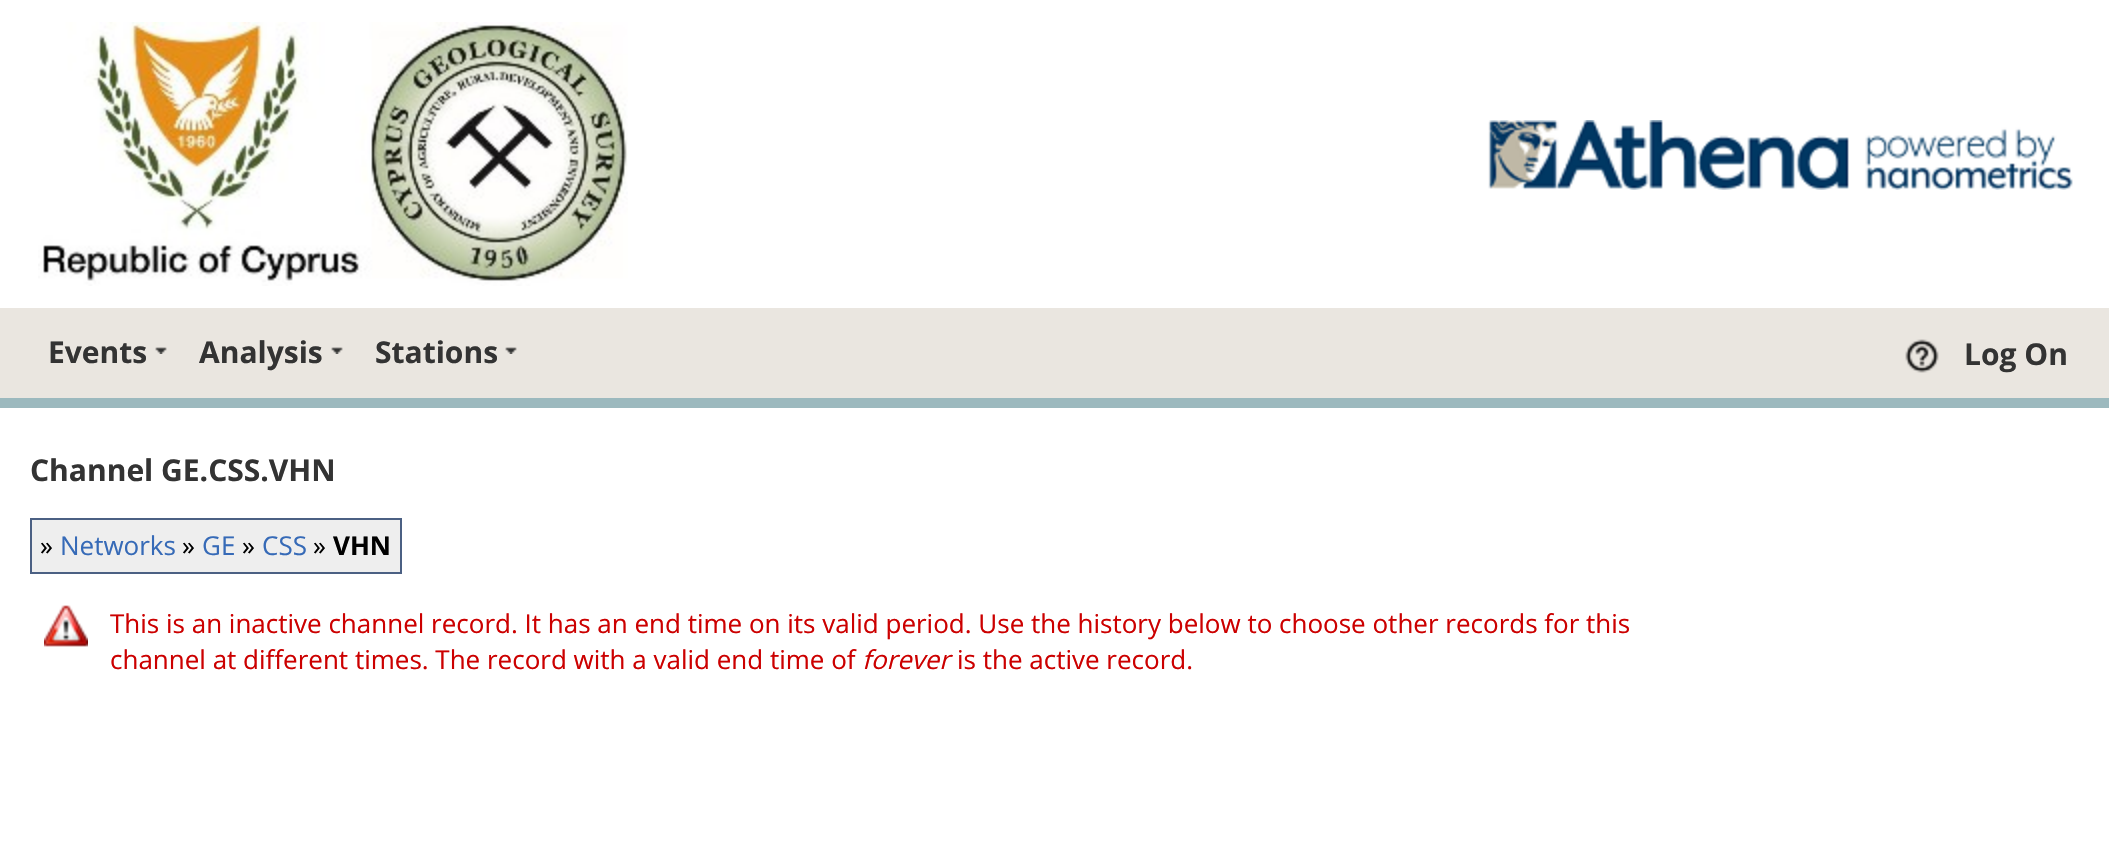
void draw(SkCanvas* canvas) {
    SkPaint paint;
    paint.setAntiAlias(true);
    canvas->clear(0xFFFFFFFF);
    canvas->drawImageRect(SkImages::DeferredFromEncodedData(SkData::MakeFromFileName("img1.png")), SkRect::MakeXYWH(38, 22, 590, 264), SkSamplingOptions());
    canvas->drawImageRect(SkImages::DeferredFromEncodedData(SkData::MakeFromFileName("img2.png")), SkRect::MakeXYWH(1488, 120, 585, 70), SkSamplingOptions());
    paint.setColor(0xFFEAE6E0);
    canvas->drawRect(SkRect::MakeXYWH(0, 308, 2109, 90), paint);
    paint.setColor(0xFF9CB9BE);
    canvas->drawRect(SkRect::MakeXYWH(0, 398, 2109, 10), paint);
    SkFont font1(fontMgr->matchFamilyStyle("Open Sans", SkFontStyle::Bold()), 30);
    font1.setSubpixel(true);
    paint.setColor(0xFF333333);
    canvas->drawString("Events", 48, 363, font1, paint);
    canvas->drawImageRect(SkImages::DeferredFromEncodedData(SkData::MakeFromFileName("img3.png")), SkRect::MakeXYWH(155, 347, 12, 7), SkSamplingOptions());
    canvas->drawString("Analysis", 199, 363, font1, paint);
    canvas->drawImageRect(SkImages::DeferredFromEncodedData(SkData::MakeFromFileName("img3.png")), SkRect::MakeXYWH(331, 347, 12, 7), SkSamplingOptions());
    canvas->drawString("Stations", 375, 363, font1, paint);
    canvas->drawImageRect(SkImages::DeferredFromEncodedData(SkData::MakeFromFileName("img3.png")), SkRect::MakeXYWH(505, 347, 12, 7), SkSamplingOptions());
    canvas->drawImageRect(SkImages::DeferredFromEncodedData(SkData::MakeFromFileName("img4.png")), SkRect::MakeXYWH(1905, 339, 34, 34), SkSamplingOptions());
    canvas->drawString("Log On", 1964, 365, font1, paint);
    canvas->drawString("Channel GE.CSS.VHN", 30, 481, font1, paint);
    paint.setColor(0xFFEEEEEE);
    canvas->drawRect(SkRect::MakeXYWH(31, 519, 370, 54), paint);
    paint.setStyle(SkPaint::kStroke_Style);
    paint.setStrokeWidth(2);
    paint.setColor(0xFF4B6083);
    canvas->drawRect(SkRect::MakeXYWH(31, 519, 370, 54), paint);
    SkFont font2(fontMgr->matchFamilyStyle("Open Sans", SkFontStyle::Normal()), 26);
    font2.setSubpixel(true);
    paint.setStyle(SkPaint::kFill_Style);
    paint.setColor(0xFF000000);
    canvas->drawString("»", 40, 555, font2, paint);
    paint.setColor(0xFF366AB7);
    canvas->drawString("Networks", 60, 555, font2, paint);
    paint.setColor(0xFF000000);
    canvas->drawString("»", 182, 555, font2, paint);
    paint.setColor(0xFF366AB7);
    canvas->drawString("GE", 202, 555, font2, paint);
    paint.setColor(0xFF000000);
    canvas->drawString("»", 242, 555, font2, paint);
    paint.setColor(0xFF366AB7);
    canvas->drawString("CSS", 262, 555, font2, paint);
    paint.setColor(0xFF000000);
    canvas->drawString("»", 313, 555, font2, paint);
    SkFont font3(fontMgr->matchFamilyStyle("Open Sans", SkFontStyle::Bold()), 26);
    font3.setSubpixel(true);
    canvas->drawString("VHN", 333, 555, font3, paint);
    canvas->drawImageRect(SkImages::DeferredFromEncodedData(SkData::MakeFromFileName("img5.png")), SkRect::MakeXYWH(44, 605, 44, 42), SkSamplingOptions());
    paint.setColor(0xFFCC0000);
    canvas->drawString("This is an inactive channel record. It has an end time on its valid period. Use the history below to choose other records for this", 110, 633, font2, paint);
    canvas->drawString("channel at different times. The record with a valid end time of", 110, 669, font2, paint);
    SkFont font4(fontMgr->matchFamilyStyle("Open Sans", SkFontStyle::Italic()), 26);
    font4.setSubpixel(true);
    canvas->drawString("forever", 862, 669, font4, paint);
    canvas->drawString("is the active record.", 957, 669, font2, paint);
}
